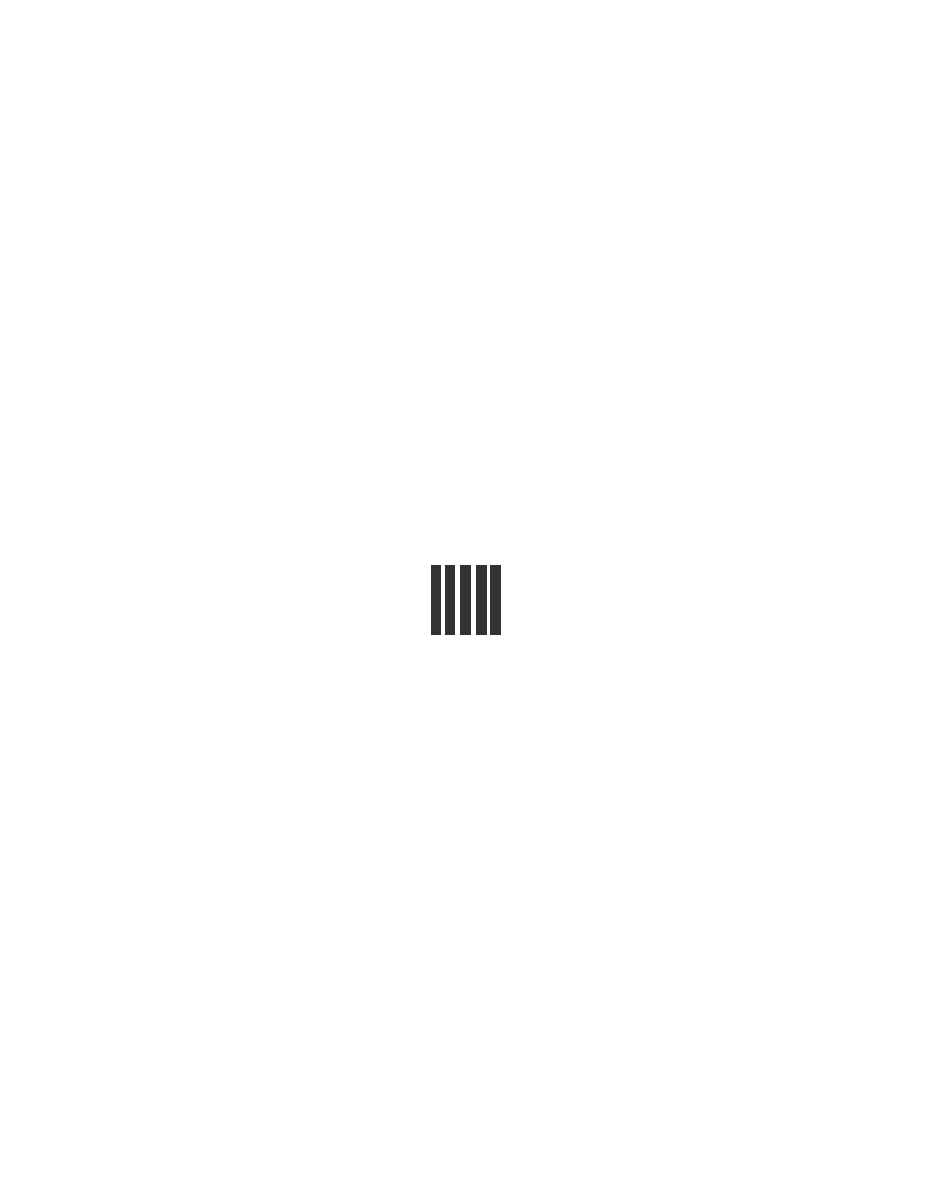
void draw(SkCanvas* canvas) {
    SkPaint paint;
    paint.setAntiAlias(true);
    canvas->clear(0xFFFFFFFF);
    paint.setColor(0xFF333333);
    canvas->drawRect(SkRect::MakeXYWH(431, 565, 10, 70), paint);
    canvas->drawRect(SkRect::MakeXYWH(445, 565, 10, 70), paint);
    canvas->drawRect(SkRect::MakeXYWH(460, 565, 11, 70), paint);
    canvas->drawRect(SkRect::MakeXYWH(476, 565, 11, 70), paint);
    canvas->drawRect(SkRect::MakeXYWH(490, 565, 11, 70), paint);
}
